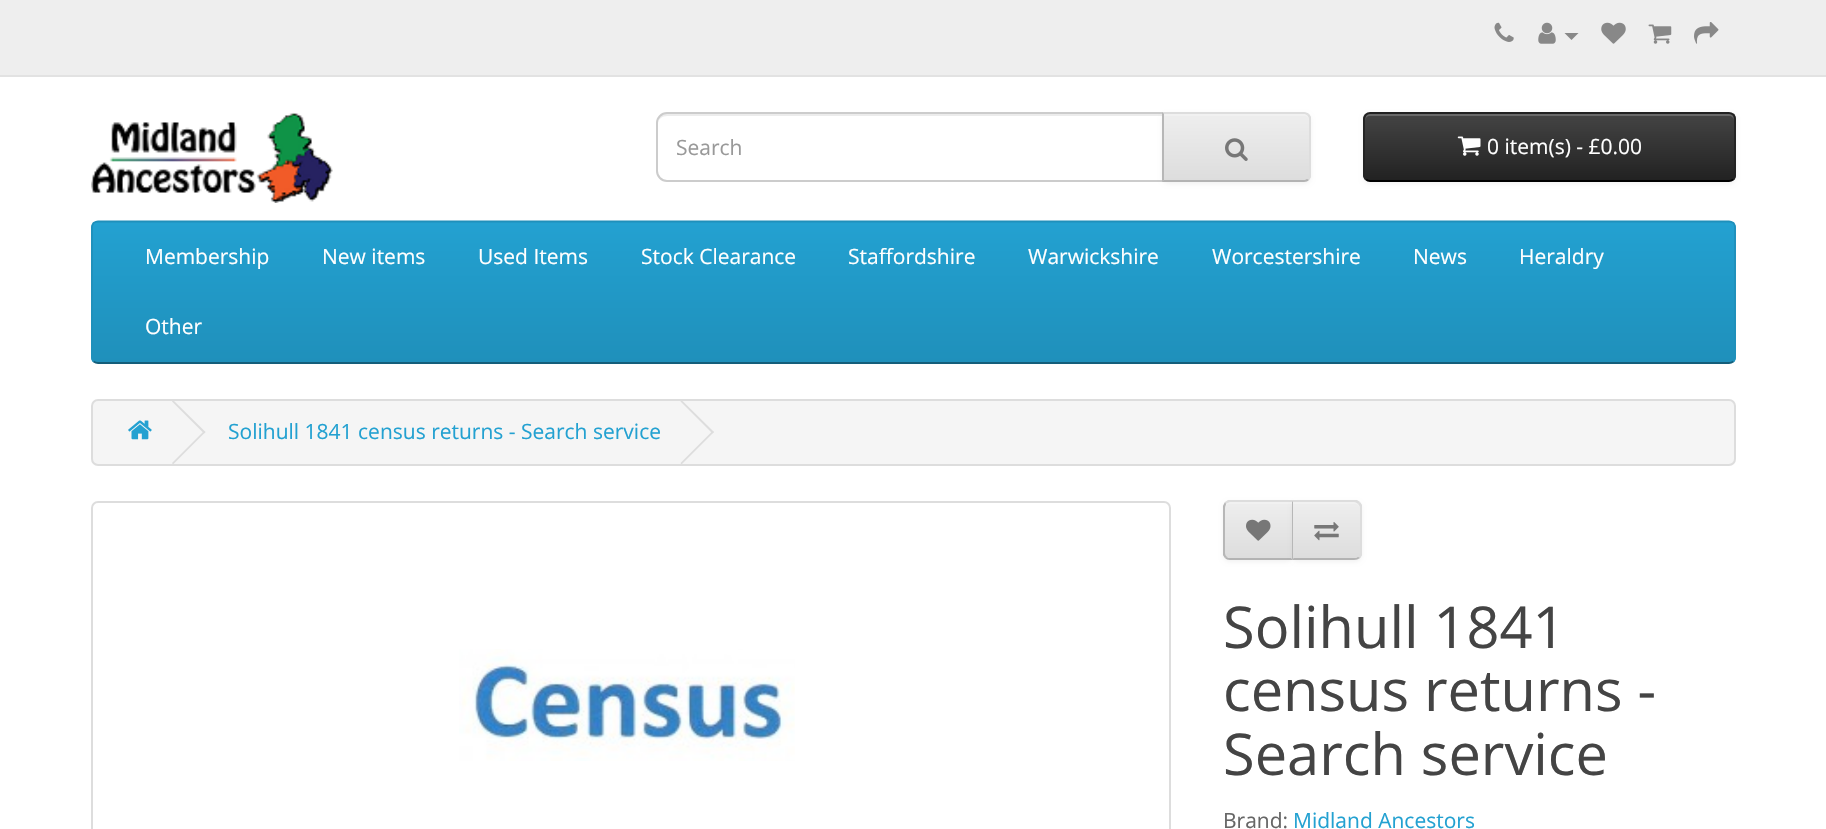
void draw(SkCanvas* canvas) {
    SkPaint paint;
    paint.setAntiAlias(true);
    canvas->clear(0xFFFFFFFF);
    paint.setColor(0xFFEEEEEE);
    canvas->drawRect(SkRect::MakeXYWH(0, 0, 1826, 75), paint);
    paint.setColor(0xFFE2E2E2);
    canvas->drawRect(SkRect::MakeXYWH(0, 75, 1826, 2), paint);
    canvas->drawImageRect(SkImages::DeferredFromEncodedData(SkData::MakeFromFileName("img1.png")), SkRect::MakeXYWH(1494, 22, 20, 20), SkSamplingOptions());
    canvas->drawImageRect(SkImages::DeferredFromEncodedData(SkData::MakeFromFileName("img2.png")), SkRect::MakeXYWH(1538, 22, 18, 22), SkSamplingOptions());
    paint.setColor(0xFF888888);
    canvas->drawPath(SkPathBuilder().moveTo(1564.5f, 33).lineTo(1578.5f, 33).lineTo(1571.5f, 40).close().detach(), paint);
    canvas->drawImageRect(SkImages::DeferredFromEncodedData(SkData::MakeFromFileName("img3.png")), SkRect::MakeXYWH(1601, 22, 25, 22), SkSamplingOptions());
    canvas->drawImageRect(SkImages::DeferredFromEncodedData(SkData::MakeFromFileName("img4.png")), SkRect::MakeXYWH(1648, 24, 24, 20), SkSamplingOptions());
    canvas->drawImageRect(SkImages::DeferredFromEncodedData(SkData::MakeFromFileName("img5.png")), SkRect::MakeXYWH(1694, 22, 25, 22), SkSamplingOptions());
    canvas->drawImageRect(SkImages::DeferredFromEncodedData(SkData::MakeFromFileName("img6.png")), SkRect::MakeXYWH(91, 112, 242, 91), SkSamplingOptions());
    paint.setColor(0xFFECECEC);
    canvas->drawPath(SkPathBuilder().moveTo(667, 116).lineTo(1162, 116).lineTo(1162, 114).lineTo(667, 114).cubicTo(661, 114, 658, 119, 658, 124).cubicTo(658, 119, 662, 116, 667, 116).close().detach(), paint);
    paint.setStyle(SkPaint::kStroke_Style);
    paint.setStrokeWidth(2);
    paint.setColor(0xFFCCCCCC);
    canvas->drawPath(SkPathBuilder().moveTo(667, 113).lineTo(1163, 113).lineTo(1163, 181).lineTo(667, 181).cubicTo(661.5f, 181, 657, 176.5f, 657, 171).lineTo(657, 123).cubicTo(657, 117.5f, 661.5f, 113, 667, 113).close().detach(), paint);
    SkFont font1(fontMgr->matchFamilyStyle("Open Sans", SkFontStyle::Normal()), 21);
    font1.setSubpixel(true);
    paint.setStyle(SkPaint::kFill_Style);
    paint.setColor(0xFF999999);
    canvas->drawString("Search", 676, 155, font1, paint);
    paint.setColor(0x0D000000);
    paint.setMaskFilter(SkMaskFilter::MakeBlur(kNormal_SkBlurStyle, 2));
    canvas->drawRoundRect(SkRect::MakeXYWH(1162, 114, 149, 70), 7, 7, paint);
    paint.setMaskFilter(nullptr);
    canvas->save();
    canvas->clipPath(SkPathBuilder().moveTo(1162, 112).lineTo(1304, 112).cubicTo(1308, 112, 1311, 115, 1311, 119).lineTo(1311, 175).cubicTo(1311, 179, 1308, 182, 1304, 182).lineTo(1162, 182).close().detach(), true);
    {
        const SkColor colors[] = {0xFFEEEEEE, 0xFFDDDDDD};
        const float stops[] = {0, 1};
        const SkPoint ends[] = {{1236, 114}, {1236, 180}};
        paint.setShader(SkGradientShader::MakeLinear(ends, colors, stops, 2, SkTileMode::kClamp));
        paint.setAlpha(255);
    }
    canvas->drawRect(SkRect::MakeXYWH(1164, 114, 147, 66), paint);
    canvas->restore();
    paint.setShader(nullptr);
    paint.setColor(0xFFF1F1F1);
    canvas->drawPath(SkPathBuilder().moveTo(1164, 116).lineTo(1304, 116).cubicTo(1307, 116, 1309, 118, 1309, 121).lineTo(1309, 119).cubicTo(1309, 116, 1307, 114, 1304, 114).lineTo(1164, 114).close().detach(), paint);
    paint.setColor(0xFFDDDDDD);
    canvas->drawPath(SkPathBuilder().moveTo(1162, 112).lineTo(1164, 114).lineTo(1305, 114).lineTo(1307, 115).lineTo(1309, 114).cubicTo(1308, 113, 1306, 112, 1304, 112).close().detach(), paint);
    canvas->drawPath(SkPathBuilder().moveTo(1311, 177).lineTo(1309, 180).lineTo(1307, 179).cubicTo(1308, 178, 1309, 177, 1309, 175).lineTo(1309, 119).cubicTo(1309, 117, 1308, 116, 1307, 115).lineTo(1309, 114).lineTo(1311, 117).close().detach(), paint);
    paint.setColor(0xFFB3B3B3);
    canvas->drawPath(SkPathBuilder().moveTo(1304, 182).cubicTo(1306, 182, 1308, 181, 1309, 180).lineTo(1307, 179).lineTo(1305, 180).lineTo(1164, 180).lineTo(1162, 182).close().detach(), paint);
    paint.setColor(0xFFB7B7B7);
    canvas->drawPath(SkPathBuilder().moveTo(1162, 112).lineTo(1162, 182).lineTo(1164, 180).lineTo(1164, 114).close().detach(), paint);
    canvas->drawImageRect(SkImages::DeferredFromEncodedData(SkData::MakeFromFileName("img7.png")), SkRect::MakeXYWH(1225, 138, 23, 23), SkSamplingOptions());
    paint.setColor(0x0D000000);
    paint.setMaskFilter(SkMaskFilter::MakeBlur(kNormal_SkBlurStyle, 2));
    canvas->drawRoundRect(SkRect::MakeXYWH(1363, 114, 373, 70), 7, 7, paint);
    paint.setMaskFilter(nullptr);
    canvas->save();
    canvas->clipPath(SkPathBuilder().moveTo(1370, 112).lineTo(1729, 112).cubicTo(1733, 112, 1736, 115, 1736, 119).lineTo(1736, 175).cubicTo(1736, 179, 1733, 182, 1729, 182).lineTo(1370, 182).cubicTo(1366, 182, 1363, 179, 1363, 175).lineTo(1363, 119).cubicTo(1363, 115, 1366, 112, 1370, 112).close().detach(), true);
    {
        const SkColor colors[] = {0xFF444444, 0xFF222222};
        const float stops[] = {0, 1};
        const SkPoint ends[] = {{1550, 114}, {1550, 180}};
        paint.setShader(SkGradientShader::MakeLinear(ends, colors, stops, 2, SkTileMode::kClamp));
        paint.setAlpha(255);
    }
    canvas->drawRect(SkRect::MakeXYWH(1363, 114, 373, 66), paint);
    canvas->restore();
    paint.setShader(nullptr);
    paint.setColor(0xFF696969);
    canvas->drawPath(SkPathBuilder().moveTo(1370, 116).lineTo(1729, 116).cubicTo(1732, 116, 1734, 118, 1734, 121).cubicTo(1734, 118, 1733, 114, 1729, 114).lineTo(1370, 114).cubicTo(1366, 114, 1365, 118, 1365, 121).cubicTo(1365, 118, 1367, 116, 1370, 116).close().detach(), paint);
    paint.setStyle(SkPaint::kStroke_Style);
    paint.setStrokeWidth(1.8f);
    paint.setColor(0xFF000000);
    canvas->drawPath(SkPathBuilder().moveTo(1733.5f, 179.5f).cubicTo(1732, 180.5f, 1730.5f, 181, 1729, 181).lineTo(1370, 181).cubicTo(1368.5f, 181, 1367, 180.5f, 1366, 179.5f).detach(), paint);
    paint.setColor(0xFF222222);
    canvas->drawPath(SkPathBuilder().moveTo(1366, 179.5f).cubicTo(1365, 178, 1364, 176.5f, 1364, 175).lineTo(1364, 119).cubicTo(1364, 117.5f, 1365, 116, 1366, 114.5f).cubicTo(1367, 113.5f, 1368.5f, 113, 1370, 113).lineTo(1729, 113).cubicTo(1730.5f, 113, 1732, 113.5f, 1733.5f, 114.5f).cubicTo(1734.5f, 116, 1735, 117.5f, 1735, 119).lineTo(1735, 175).cubicTo(1735, 176.5f, 1734.5f, 178, 1733.5f, 179.5f).detach(), paint);
    canvas->drawImageRect(SkImages::DeferredFromEncodedData(SkData::MakeFromFileName("img8.png")), SkRect::MakeXYWH(1457, 136, 24, 20), SkSamplingOptions());
    paint.setStyle(SkPaint::kFill_Style);
    paint.setColor(0xFFFFFFFF);
    canvas->drawString("0 item(s) - £0.00", 1487, 154, font1, paint);
    canvas->save();
    canvas->clipPath(SkPathBuilder().moveTo(98, 221).lineTo(1729, 221).cubicTo(1733, 221, 1736, 224, 1736, 228).lineTo(1736, 357).cubicTo(1736, 361, 1733, 364, 1729, 364).lineTo(98, 364).cubicTo(94, 364, 91, 361, 91, 357).lineTo(91, 228).cubicTo(91, 224, 94, 221, 98, 221).close().detach(), true);
    {
        const SkColor colors[] = {0xFF23A1D1, 0xFF1F90BB};
        const float stops[] = {0, 1};
        const SkPoint ends[] = {{914, 222}, {914, 362}};
        paint.setShader(SkGradientShader::MakeLinear(ends, colors, stops, 2, SkTileMode::kClamp));
        paint.setAlpha(255);
    }
    canvas->drawRect(SkRect::MakeXYWH(91, 222, 1645, 140), paint);
    canvas->restore();
    paint.setStyle(SkPaint::kStroke_Style);
    paint.setShader(nullptr);
    paint.setColor(0xFF145E7A);
    canvas->drawPath(SkPathBuilder().moveTo(1733.5f, 361.5f).cubicTo(1732, 362.5f, 1730.5f, 363, 1729, 363).lineTo(98, 363).cubicTo(96.5f, 363, 95, 362.5f, 93.5f, 361.5f).detach(), paint);
    paint.setColor(0xFF1F90BB);
    canvas->drawPath(SkPathBuilder().moveTo(93.5f, 361.5f).cubicTo(92.5f, 360, 92, 358.5f, 92, 357).lineTo(92, 227.5f).cubicTo(92, 226, 92.5f, 224.5f, 93.5f, 223).cubicTo(95, 222, 96.5f, 221.5f, 98, 221.5f).lineTo(1729, 221.5f).cubicTo(1730.5f, 221.5f, 1732, 222, 1733.5f, 223).cubicTo(1734.5f, 224.5f, 1735, 226, 1735, 227.5f).lineTo(1735, 357).cubicTo(1735, 358.5f, 1734.5f, 360, 1733.5f, 361.5f).detach(), paint);
    paint.setStyle(SkPaint::kFill_Style);
    paint.setColor(0xFFFFFFFF);
    canvas->drawString("Membership", 145, 264, font1, paint);
    canvas->drawString("New items", 322, 264, font1, paint);
    canvas->drawString("Used Items", 478, 264, font1, paint);
    canvas->drawString("Stock Clearance", 641, 264, font1, paint);
    canvas->drawString("Staffordshire", 848, 264, font1, paint);
    canvas->drawString("Warwickshire", 1028, 264, font1, paint);
    canvas->drawString("Worcestershire", 1212, 264, font1, paint);
    canvas->drawString("News", 1413, 264, font1, paint);
    canvas->drawString("Heraldry", 1519, 264, font1, paint);
    canvas->drawString("Other", 145, 334, font1, paint);
    paint.setColor(0xFFF5F5F5);
    canvas->drawRoundRect(SkRect::MakeXYWH(92, 400, 1643, 65), 6, 6, paint);
    paint.setStyle(SkPaint::kStroke_Style);
    paint.setStrokeWidth(2);
    paint.setColor(0xFFDDDDDD);
    canvas->drawRoundRect(SkRect::MakeXYWH(92, 400, 1643, 65), 6, 6, paint);
    canvas->drawImageRect(SkImages::DeferredFromEncodedData(SkData::MakeFromFileName("img9.png")), SkRect::MakeXYWH(128, 420, 24, 20), SkSamplingOptions());
    paint.setStyle(SkPaint::kFill_Style);
    canvas->drawPath(SkPathBuilder().moveTo(172, 401.5f).lineTo(173, 400).lineTo(205.5f, 432).lineTo(204, 433.5f).close().detach(), paint);
    canvas->drawPath(SkPathBuilder().moveTo(172, 463).lineTo(204, 431).lineTo(205.5f, 432).lineTo(173, 464.5f).close().detach(), paint);
    paint.setColor(0xFF23A1D1);
    canvas->drawString("Solihull 1841 census returns - Search service", 228, 439, font1, paint);
    paint.setColor(0xFFDDDDDD);
    canvas->drawPath(SkPathBuilder().moveTo(680.5f, 401.5f).lineTo(681.5f, 400).lineTo(714, 432).lineTo(712.5f, 433.5f).close().detach(), paint);
    canvas->drawPath(SkPathBuilder().moveTo(680.5f, 463).lineTo(712.5f, 431).lineTo(714, 432).lineTo(681.5f, 464.5f).close().detach(), paint);
    paint.setStyle(SkPaint::kStroke_Style);
    canvas->drawRoundRect(SkRect::MakeXYWH(92, 502, 1078, 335), 6, 6, paint);
    canvas->drawImageRect(SkImages::DeferredFromEncodedData(SkData::MakeFromFileName("img10.png")), SkRect::MakeXYWH(459, 649, 336, 112), SkSamplingOptions());
    paint.setStyle(SkPaint::kFill_Style);
    paint.setColor(0x0D000000);
    paint.setMaskFilter(SkMaskFilter::MakeBlur(kNormal_SkBlurStyle, 2));
    canvas->drawRoundRect(SkRect::MakeXYWH(1223, 502, 70, 60), 7, 7, paint);
    paint.setMaskFilter(nullptr);
    paint.setColor(0xFFE7E7E7);
    canvas->drawPath(SkPathBuilder().moveTo(1230, 501).lineTo(1293, 501).lineTo(1293, 560).lineTo(1230, 560).cubicTo(1226, 560, 1223, 557, 1223, 553).lineTo(1223, 508).cubicTo(1223, 504, 1226, 501, 1230, 501).close().detach(), paint);
    canvas->save();
    canvas->clipPath(SkPathBuilder().moveTo(1230, 501).lineTo(1293, 501).lineTo(1293, 560).lineTo(1230, 560).cubicTo(1226, 560, 1223, 557, 1223, 553).lineTo(1223, 508).cubicTo(1223, 504, 1226, 501, 1230, 501).close().detach(), true);
    {
        const SkColor colors[] = {0xFFEEEEEE, 0xFFDDDDDD};
        const float stops[] = {0, 1};
        const SkPoint ends[] = {{1258, 502}, {1258, 558}};
        paint.setShader(SkGradientShader::MakeLinear(ends, colors, stops, 2, SkTileMode::kClamp));
        paint.setAlpha(255);
    }
    canvas->drawRect(SkRect::MakeXYWH(1223, 502, 69, 56), paint);
    canvas->restore();
    paint.setShader(nullptr);
    paint.setColor(0xFFF1F1F1);
    canvas->drawPath(SkPathBuilder().moveTo(1230, 504).lineTo(1292, 504).lineTo(1292, 502).lineTo(1230, 502).cubicTo(1227, 502, 1225, 504, 1225, 507).lineTo(1225, 509).cubicTo(1225, 506, 1227, 504, 1230, 504).close().detach(), paint);
    paint.setColor(0xFFDDDDDD);
    canvas->drawPath(SkPathBuilder().moveTo(1230, 502).cubicTo(1229, 502, 1227, 503, 1226, 504).lineTo(1225, 502).lineTo(1228, 500).lineTo(1293, 500).lineTo(1292, 502).close().detach(), paint);
    paint.setColor(0xFFB3B3B3);
    canvas->drawPath(SkPathBuilder().moveTo(1230, 560).lineTo(1293, 560).lineTo(1291, 558).lineTo(1230, 558).cubicTo(1229, 558, 1227, 558, 1227, 557).lineTo(1225, 558).cubicTo(1226, 559, 1228, 560, 1230, 560).close().detach(), paint);
    paint.setColor(0xFFB7B7B7);
    canvas->drawPath(SkPathBuilder().moveTo(1223, 506).lineTo(1225, 502).lineTo(1226, 504).cubicTo(1226, 505, 1225, 506, 1225, 508).lineTo(1225, 553).cubicTo(1225, 555, 1226, 556, 1227, 557).lineTo(1225, 558).lineTo(1223, 555).close().detach(), paint);
    canvas->drawImageRect(SkImages::DeferredFromEncodedData(SkData::MakeFromFileName("img11.png")), SkRect::MakeXYWH(1246, 519, 25, 22), SkSamplingOptions());
    paint.setColor(0x0D000000);
    paint.setMaskFilter(SkMaskFilter::MakeBlur(kNormal_SkBlurStyle, 2));
    canvas->drawRoundRect(SkRect::MakeXYWH(1292, 502, 70, 60), 7, 7, paint);
    paint.setMaskFilter(nullptr);
    paint.setColor(0xFFE7E7E7);
    canvas->drawPath(SkPathBuilder().moveTo(1292, 501).lineTo(1355, 501).cubicTo(1359, 501, 1362, 504, 1362, 508).lineTo(1362, 553).cubicTo(1362, 557, 1359, 560, 1355, 560).lineTo(1292, 560).close().detach(), paint);
    canvas->save();
    canvas->clipPath(SkPathBuilder().moveTo(1292, 501).lineTo(1355, 501).cubicTo(1359, 501, 1362, 504, 1362, 508).lineTo(1362, 553).cubicTo(1362, 557, 1359, 560, 1355, 560).lineTo(1292, 560).close().detach(), true);
    {
        const SkColor colors[] = {0xFFEEEEEE, 0xFFDDDDDD};
        const float stops[] = {0, 1};
        const SkPoint ends[] = {{1327, 502}, {1327, 558}};
        paint.setShader(SkGradientShader::MakeLinear(ends, colors, stops, 2, SkTileMode::kClamp));
        paint.setAlpha(255);
    }
    canvas->drawRect(SkRect::MakeXYWH(1293, 502, 69, 56), paint);
    canvas->restore();
    paint.setShader(nullptr);
    paint.setColor(0xFFF1F1F1);
    canvas->drawPath(SkPathBuilder().moveTo(1293, 504).lineTo(1354, 504).cubicTo(1357, 504, 1360, 506, 1360, 509).lineTo(1360, 507).cubicTo(1360, 504, 1358, 502, 1355, 502).lineTo(1293, 502).close().detach(), paint);
    paint.setColor(0xFFDDDDDD);
    canvas->drawPath(SkPathBuilder().moveTo(1293, 502).lineTo(1292, 500).lineTo(1357, 500).lineTo(1360, 502).lineTo(1358, 504).cubicTo(1357, 503, 1356, 502, 1354, 502).close().detach(), paint);
    canvas->drawPath(SkPathBuilder().moveTo(1362, 555).lineTo(1360, 558).lineTo(1358, 557).cubicTo(1359, 556, 1360, 554, 1360, 553).lineTo(1360, 508).cubicTo(1360, 506, 1359, 505, 1358, 504).lineTo(1360, 502).lineTo(1362, 505).close().detach(), paint);
    paint.setColor(0xFFB3B3B3);
    canvas->drawPath(SkPathBuilder().moveTo(1292, 560).lineTo(1354, 560).cubicTo(1356, 560, 1358, 559, 1360, 558).lineTo(1358, 557).cubicTo(1357, 558, 1356, 558, 1354, 558).lineTo(1294, 558).close().detach(), paint);
    paint.setColor(0xFFB7B7B7);
    canvas->drawPath(SkPathBuilder().moveTo(1293, 502).lineTo(1293, 558).lineTo(1294, 558).lineTo(1292, 560).lineTo(1292, 501).close().detach(), paint);
    canvas->drawImageRect(SkImages::DeferredFromEncodedData(SkData::MakeFromFileName("img12.png")), SkRect::MakeXYWH(1314, 522, 25, 19), SkSamplingOptions());
    SkFont font2(fontMgr->matchFamilyStyle("Open Sans", SkFontStyle::Normal()), 57.75f);
    font2.setSubpixel(true);
    paint.setColor(0xFF444444);
    canvas->drawString("Solihull 1841", 1223, 648, font2, paint);
    canvas->drawString("census returns -", 1223, 711, font2, paint);
    canvas->drawString("Search service", 1223, 775, font2, paint);
    paint.setColor(0xFF666666);
    canvas->drawString("Brand:", 1223, 828, font1, paint);
    paint.setColor(0xFF23A1D1);
    canvas->drawString("Midland Ancestors", 1293, 828, font1, paint);
}
